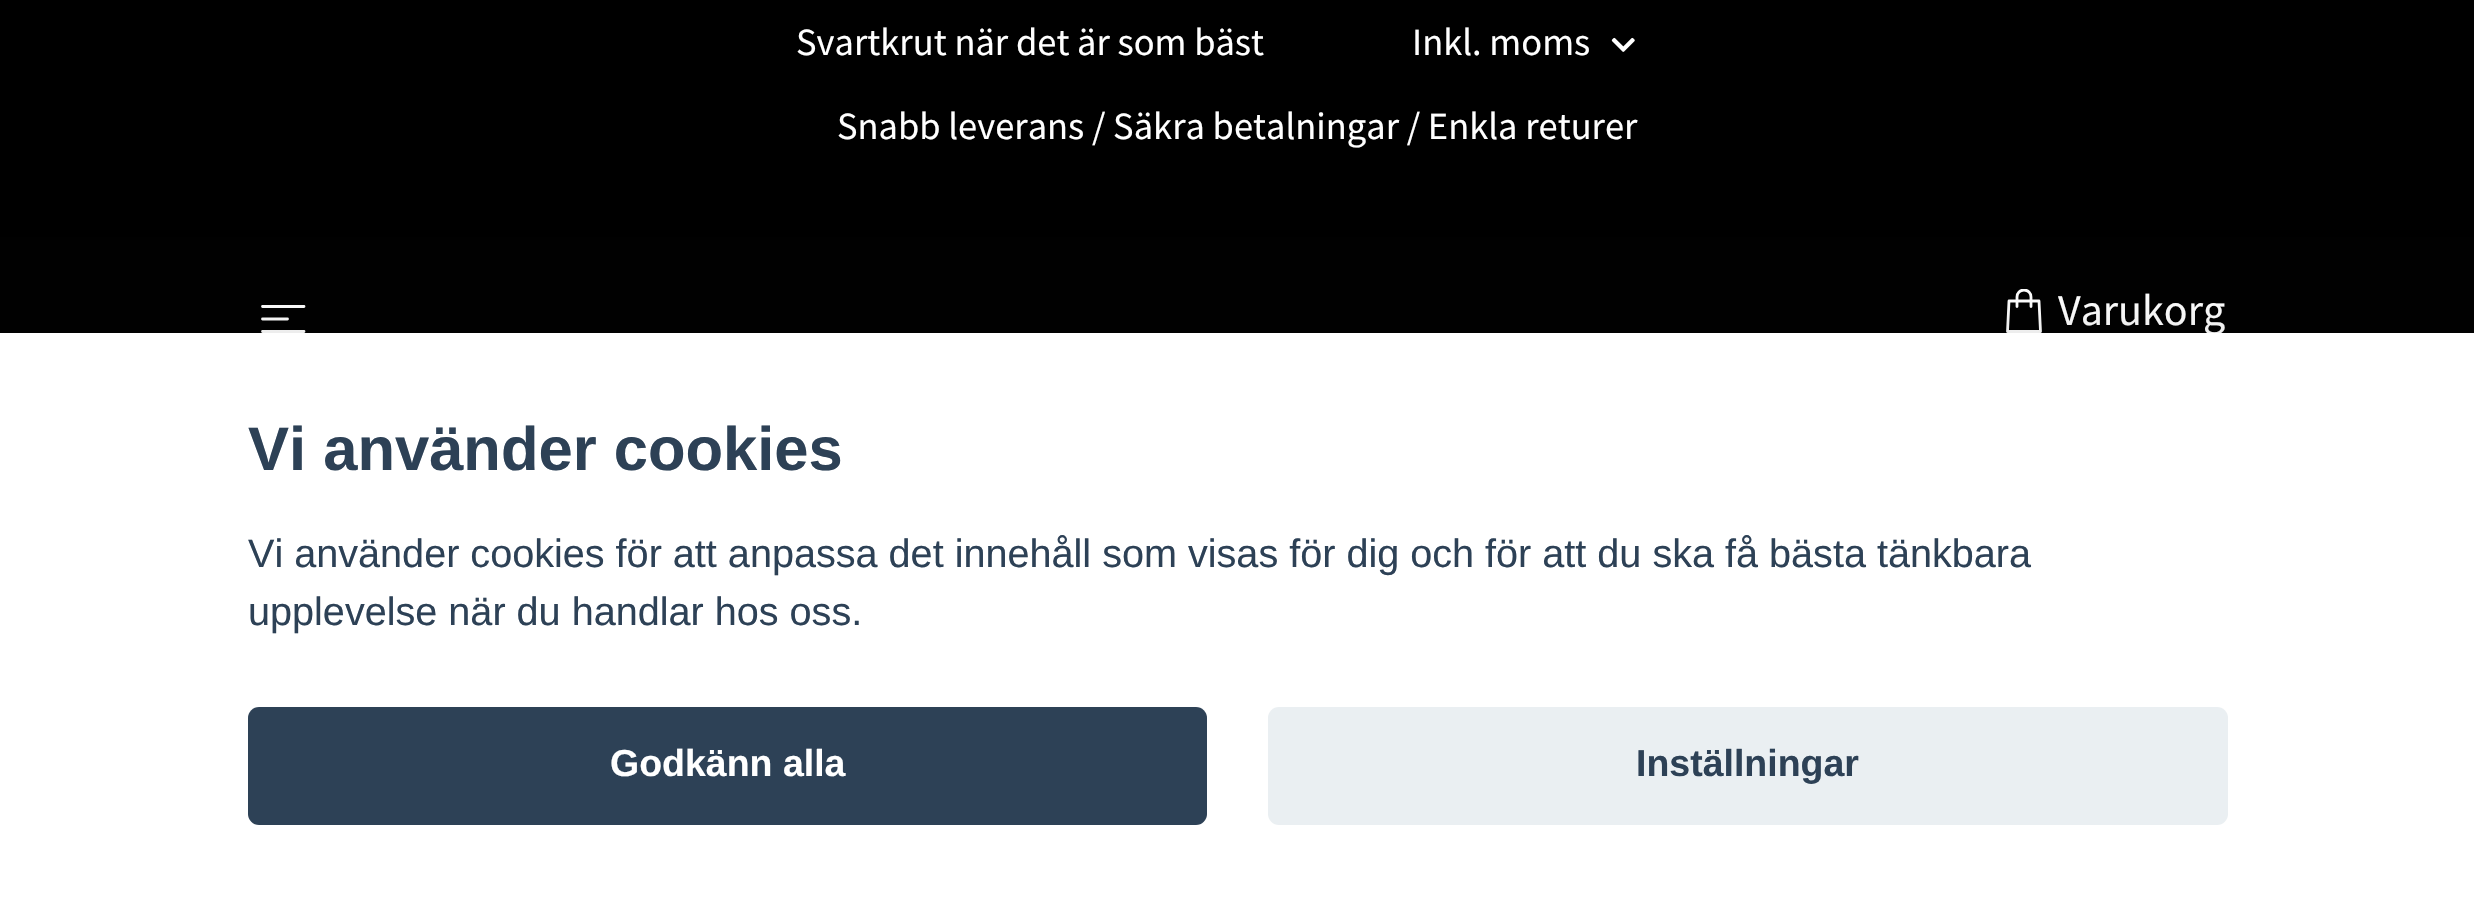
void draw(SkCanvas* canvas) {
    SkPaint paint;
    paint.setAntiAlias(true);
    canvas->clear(0xFF000000);
    SkFont font1(fontMgr->matchFamilyStyle("Source Sans Pro", SkFontStyle::Normal()), 38.5f);
    font1.setSubpixel(true);
    paint.setColor(0xFFFFFFFF);
    canvas->drawString("Svartkrut när det är som bäst", 796, 55, font1, paint);
    canvas->drawString("Inkl. moms", 1412, 55, font1, paint);
    canvas->drawImageRect(SkImages::DeferredFromEncodedData(SkData::MakeFromFileName("img1.png")), SkRect::MakeXYWH(1611, 37, 24, 15), SkSamplingOptions());
    canvas->drawString("Snabb leverans / Säkra betalningar / Enkla returer", 837, 139, font1, paint);
    paint.setStyle(SkPaint::kStroke_Style);
    paint.setStrokeWidth(2.8f);
    paint.setStrokeCap(SkPaint::kRound_Cap);
    paint.setStrokeJoin(SkPaint::kRound_Join);
    canvas->drawPath(SkPathBuilder().moveTo(262.5f, 306.5f).lineTo(304, 306.5f).moveTo(262.5f, 319).lineTo(287.5f, 319).moveTo(262.5f, 331.5f).lineTo(304, 331.5f).detach(), paint);
    canvas->drawPath(SkPathBuilder().moveTo(2040.5f, 331.5f).lineTo(2007.5f, 331.5f).lineTo(2009, 301).lineTo(2039, 301).close().detach(), paint);
    canvas->save();
    canvas->clipRect(SkRect::MakeXYWH(1991, 289, 66, 44));
    canvas->drawPath(SkPathBuilder().moveTo(2017, 306.5f).lineTo(2017, 297).cubicTo(2017, 293, 2020, 290, 2024, 290).cubicTo(2028, 290, 2031, 293, 2031, 297).lineTo(2031, 306.5f).detach(), paint);
    canvas->restore();
    SkFont font2(fontMgr->matchFamilyStyle("Source Sans Pro", SkFontStyle::Normal()), 44);
    font2.setSubpixel(true);
    paint.setStyle(SkPaint::kFill_Style);
    canvas->drawString("Varukorg", 2058, 325, font2, paint);
    paint.setColor(0x47020203);
    paint.setMaskFilter(SkMaskFilter::MakeBlur(kNormal_SkBlurStyle, 41));
    canvas->drawRect(SkRect::MakeXYWH(0, 360, 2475, 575), paint);
    paint.setMaskFilter(nullptr);
    paint.setColor(0xFFFFFFFF);
    canvas->drawRect(SkRect::MakeXYWH(0, 333, 2474, 574), paint);
    SkFont font3(fontMgr->matchFamilyStyle("Liberation Sans", SkFontStyle::Bold()), 61.5f);
    font3.setSubpixel(true);
    paint.setColor(0xFF2D4156);
    canvas->drawString("Vi använder cookies", 248, 470, font3, paint);
    SkFont font4(fontMgr->matchFamilyStyle("Liberation Sans", SkFontStyle::Normal()), 39.6f);
    font4.setSubpixel(true);
    canvas->drawString("Vi använder cookies för att anpassa det innehåll som visas för dig och för att du ska få bästa tänkbara", 248, 567, font4, paint);
    canvas->drawString("upplevelse när du handlar hos oss.", 248, 625, font4, paint);
    canvas->drawRoundRect(SkRect::MakeXYWH(248, 707, 959, 118), 11, 11, paint);
    SkFont font5(fontMgr->matchFamilyStyle("Liberation Sans", SkFontStyle::Bold()), 37.5f);
    font5.setSubpixel(true);
    paint.setColor(0xFFFFFFFF);
    canvas->drawString("Godkänn alla", 610, 776, font5, paint);
    paint.setColor(0xFFEAEFF2);
    canvas->drawRoundRect(SkRect::MakeXYWH(1268, 707, 960, 118), 11, 11, paint);
    paint.setColor(0xFF2D4156);
    canvas->drawString("Inställningar", 1636, 776, font5, paint);
}
